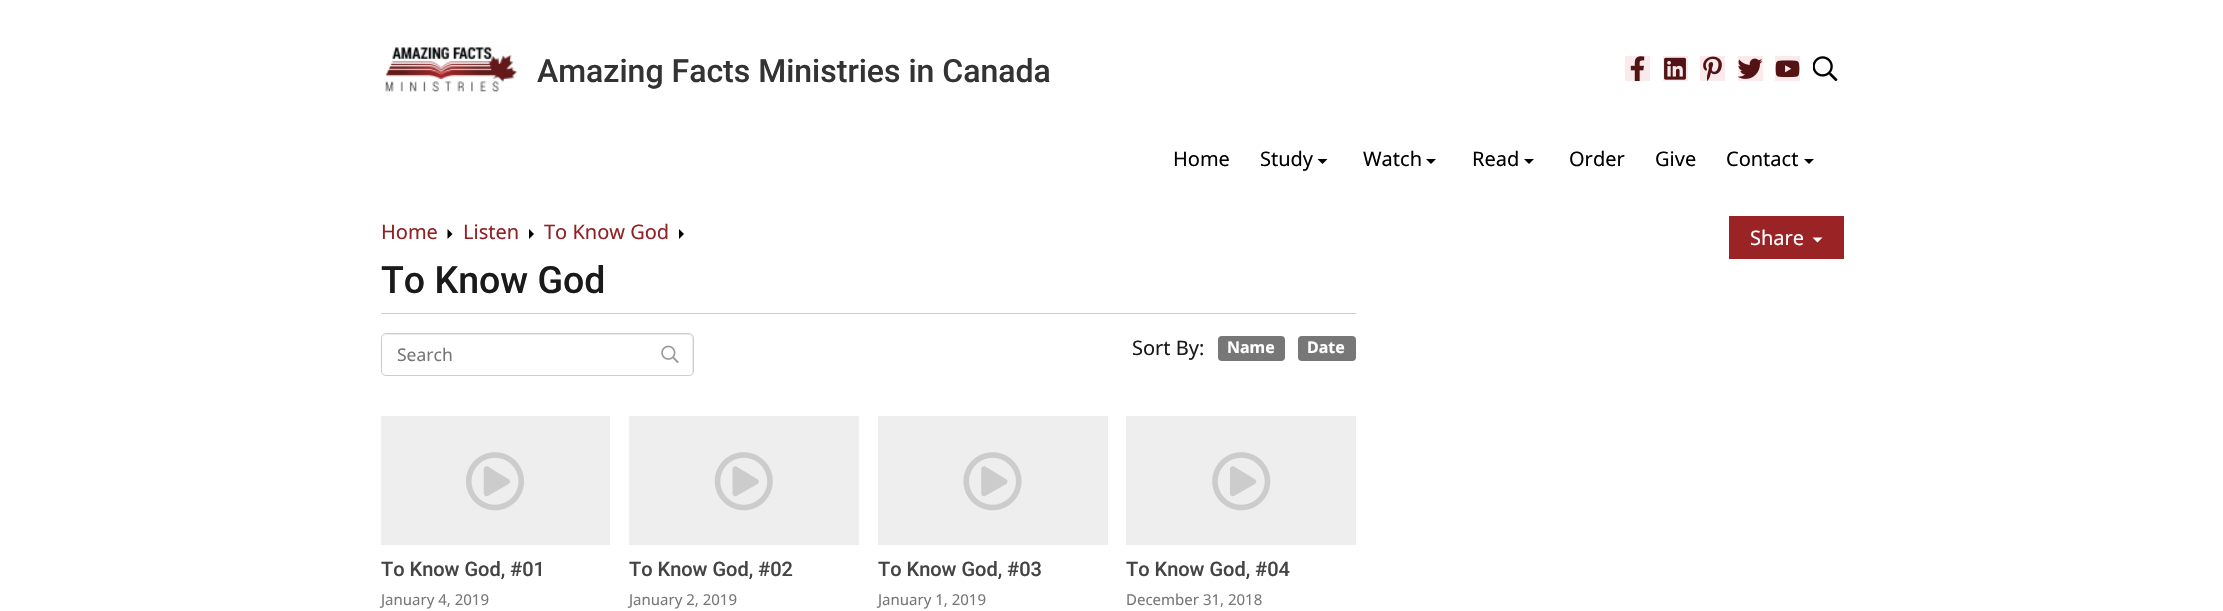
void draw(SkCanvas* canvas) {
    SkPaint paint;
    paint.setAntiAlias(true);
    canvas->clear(0xFFFFFFFF);
    canvas->drawImageRect(SkImages::DeferredFromEncodedData(SkData::MakeFromFileName("img1.png")), SkRect::MakeXYWH(385, 46, 133, 46), SkSamplingOptions());
    SkFont font1(fontMgr->matchFamilyStyle("Roboto", SkFontStyle(500, SkFontStyle::kNormal_Width, SkFontStyle::kUpright_Slant)), 32);
    font1.setSubpixel(true);
    paint.setColor(0xFF333333);
    canvas->drawString("Amazing Facts Ministries in Canada", 537, 82, font1, paint);
    paint.setColor(0xFFFAEAEB);
    canvas->drawRect(SkRect::MakeXYWH(1625, 56, 25, 25), paint);
    canvas->drawImageRect(SkImages::DeferredFromEncodedData(SkData::MakeFromFileName("img2.png")), SkRect::MakeXYWH(1630, 56, 15, 25), SkSamplingOptions());
    canvas->drawRect(SkRect::MakeXYWH(1663, 56, 25, 25), paint);
    canvas->drawImageRect(SkImages::DeferredFromEncodedData(SkData::MakeFromFileName("img3.png")), SkRect::MakeXYWH(1664, 57, 22, 23), SkSamplingOptions());
    canvas->drawRect(SkRect::MakeXYWH(1700, 56, 25, 25), paint);
    canvas->drawImageRect(SkImages::DeferredFromEncodedData(SkData::MakeFromFileName("img4.png")), SkRect::MakeXYWH(1703, 56, 19, 25), SkSamplingOptions());
    canvas->drawRect(SkRect::MakeXYWH(1738, 56, 25, 25), paint);
    canvas->drawImageRect(SkImages::DeferredFromEncodedData(SkData::MakeFromFileName("img5.png")), SkRect::MakeXYWH(1738, 58, 25, 21), SkSamplingOptions());
    canvas->drawRect(SkRect::MakeXYWH(1775, 56, 25, 25), paint);
    canvas->drawImageRect(SkImages::DeferredFromEncodedData(SkData::MakeFromFileName("img6.png")), SkRect::MakeXYWH(1775, 60, 25, 18), SkSamplingOptions());
    canvas->drawImageRect(SkImages::DeferredFromEncodedData(SkData::MakeFromFileName("img7.png")), SkRect::MakeXYWH(1813, 56, 25, 25), SkSamplingOptions());
    SkFont font2(fontMgr->matchFamilyStyle("Noto Sans", SkFontStyle::Normal()), 20);
    font2.setSubpixel(true);
    paint.setColor(0xFF000000);
    canvas->drawString("Home", 1173, 166, font2, paint);
    canvas->drawString("Study", 1260, 166, font2, paint);
    canvas->drawPath(SkPathBuilder().moveTo(1317.5f, 159).lineTo(1327.5f, 159).lineTo(1322.5f, 164).close().detach(), paint);
    canvas->drawString("Watch", 1363, 166, font2, paint);
    canvas->drawPath(SkPathBuilder().moveTo(1426, 159).lineTo(1436, 159).lineTo(1431, 164).close().detach(), paint);
    canvas->drawString("Read", 1472, 166, font2, paint);
    canvas->drawPath(SkPathBuilder().moveTo(1524, 159).lineTo(1534, 159).lineTo(1529, 164).close().detach(), paint);
    canvas->drawString("Order", 1569, 166, font2, paint);
    canvas->drawString("Give", 1655, 166, font2, paint);
    canvas->drawString("Contact", 1726, 166, font2, paint);
    canvas->drawPath(SkPathBuilder().moveTo(1804, 159).lineTo(1814, 159).lineTo(1809, 164).close().detach(), paint);
    paint.setColor(0xFF912125);
    canvas->drawString("Home", 381, 239, font2, paint);
    paint.setColor(0xFF000000);
    canvas->drawPath(SkPathBuilder().moveTo(447.5f, 239).lineTo(447.5f, 229).lineTo(452.5f, 234).close().detach(), paint);
    paint.setColor(0xFF912125);
    canvas->drawString("Listen", 463, 239, font2, paint);
    paint.setColor(0xFF000000);
    canvas->drawPath(SkPathBuilder().moveTo(529, 239).lineTo(529, 229).lineTo(534, 234).close().detach(), paint);
    paint.setColor(0xFF912125);
    canvas->drawString("To Know God", 544, 239, font2, paint);
    paint.setColor(0xFF000000);
    canvas->drawPath(SkPathBuilder().moveTo(679, 239).lineTo(679, 229).lineTo(684, 234).close().detach(), paint);
    paint.setColor(0xFF9A2326);
    canvas->drawRect(SkRect::MakeXYWH(1729, 216, 115, 43), paint);
    paint.setColor(0xFFFFFFFF);
    canvas->drawString("Share", 1750, 245, font2, paint);
    canvas->drawPath(SkPathBuilder().moveTo(1812.5f, 237.5f).lineTo(1822.5f, 237.5f).lineTo(1817.5f, 242.5f).close().detach(), paint);
    SkFont font3(fontMgr->matchFamilyStyle("Roboto", SkFontStyle(500, SkFontStyle::kNormal_Width, SkFontStyle::kUpright_Slant)), 37.5f);
    font3.setSubpixel(true);
    paint.setColor(0xFF1A1A1A);
    canvas->drawString("To Know God", 381, 293, font3, paint);
    paint.setColor(0xFFCDCDCD);
    canvas->drawRect(SkRect::MakeXYWH(381, 313, 975, 1), paint);
    paint.setColor(0xFFEBEBEB);
    canvas->drawPath(SkPathBuilder().moveTo(386, 335).lineTo(689, 335).cubicTo(691, 335, 692, 337, 692, 339).lineTo(692, 374).cubicTo(693, 373, 693, 372, 693, 371).lineTo(693, 338).cubicTo(693, 336, 691, 334, 689, 334).lineTo(387, 334).cubicTo(386, 334, 384, 335, 384, 336).close().detach(), paint);
    paint.setStyle(SkPaint::kStroke_Style);
    paint.setStrokeWidth(1);
    paint.setColor(0xFFCCCCCC);
    canvas->drawRoundRect(SkRect::MakeXYWH(381.5f, 333.5f, 312, 42), 4.5f, 4.5f, paint);
    SkFont font4(fontMgr->matchFamilyStyle("Noto Sans", SkFontStyle::Normal()), 17.5f);
    font4.setSubpixel(true);
    paint.setStyle(SkPaint::kFill_Style);
    paint.setColor(0xFF777777);
    canvas->drawString("Search", 397, 361, font4, paint);
    canvas->drawImageRect(SkImages::DeferredFromEncodedData(SkData::MakeFromFileName("img8.png")), SkRect::MakeXYWH(661, 345, 18, 18), SkSamplingOptions());
    paint.setColor(0xFF1A1A1A);
    canvas->drawString("Sort By:", 1132, 355, font2, paint);
    paint.setColor(0xFF777777);
    canvas->drawRoundRect(SkRect::MakeXYWH(1218, 336, 67, 25), 4, 4, paint);
    SkFont font5(fontMgr->matchFamilyStyle("Noto Sans", SkFontStyle::Bold()), 16);
    font5.setSubpixel(true);
    paint.setColor(0xFFFFFFFF);
    canvas->drawString("Name", 1227, 353, font5, paint);
    paint.setColor(0xFF777777);
    canvas->drawRoundRect(SkRect::MakeXYWH(1298, 336, 58, 25), 4, 4, paint);
    paint.setColor(0xFFFFFFFF);
    canvas->drawString("Date", 1307, 353, font5, paint);
    paint.setColor(0xFFEEEEEE);
    canvas->drawRect(SkRect::MakeXYWH(381, 416, 229, 129), paint);
    canvas->drawImageRect(SkImages::DeferredFromEncodedData(SkData::MakeFromFileName("img9.png")), SkRect::MakeXYWH(466, 452, 58, 59), SkSamplingOptions());
    SkFont font6(fontMgr->matchFamilyStyle("Roboto", SkFontStyle(500, SkFontStyle::kNormal_Width, SkFontStyle::kUpright_Slant)), 20);
    font6.setSubpixel(true);
    paint.setColor(0xFF444444);
    canvas->drawString("To Know God, #01", 381, 576, font6, paint);
    SkFont font7(fontMgr->matchFamilyStyle("Noto Sans", SkFontStyle::Normal()), 15);
    font7.setSubpixel(true);
    paint.setColor(0xFF777777);
    canvas->drawString("January 4, 2019", 381, 605, font7, paint);
    paint.setColor(0xFFEEEEEE);
    canvas->drawRect(SkRect::MakeXYWH(629, 416, 230, 129), paint);
    canvas->drawImageRect(SkImages::DeferredFromEncodedData(SkData::MakeFromFileName("img10.png")), SkRect::MakeXYWH(714, 452, 59, 59), SkSamplingOptions());
    paint.setColor(0xFF444444);
    canvas->drawString("To Know God, #02", 629, 576, font6, paint);
    paint.setColor(0xFF777777);
    canvas->drawString("January 2, 2019", 629, 605, font7, paint);
    paint.setColor(0xFFEEEEEE);
    canvas->drawRect(SkRect::MakeXYWH(878, 416, 230, 129), paint);
    canvas->drawImageRect(SkImages::DeferredFromEncodedData(SkData::MakeFromFileName("img11.png")), SkRect::MakeXYWH(963, 452, 59, 59), SkSamplingOptions());
    paint.setColor(0xFF444444);
    canvas->drawString("To Know God, #03", 878, 576, font6, paint);
    paint.setColor(0xFF777777);
    canvas->drawString("January 1, 2019", 878, 605, font7, paint);
    paint.setColor(0xFFEEEEEE);
    canvas->drawRect(SkRect::MakeXYWH(1126, 416, 230, 129), paint);
    canvas->drawImageRect(SkImages::DeferredFromEncodedData(SkData::MakeFromFileName("img12.png")), SkRect::MakeXYWH(1212, 452, 59, 59), SkSamplingOptions());
    paint.setColor(0xFF444444);
    canvas->drawString("To Know God, #04", 1126, 576, font6, paint);
    paint.setColor(0xFF777777);
    canvas->drawString("December 31, 2018", 1126, 605, font7, paint);
}
